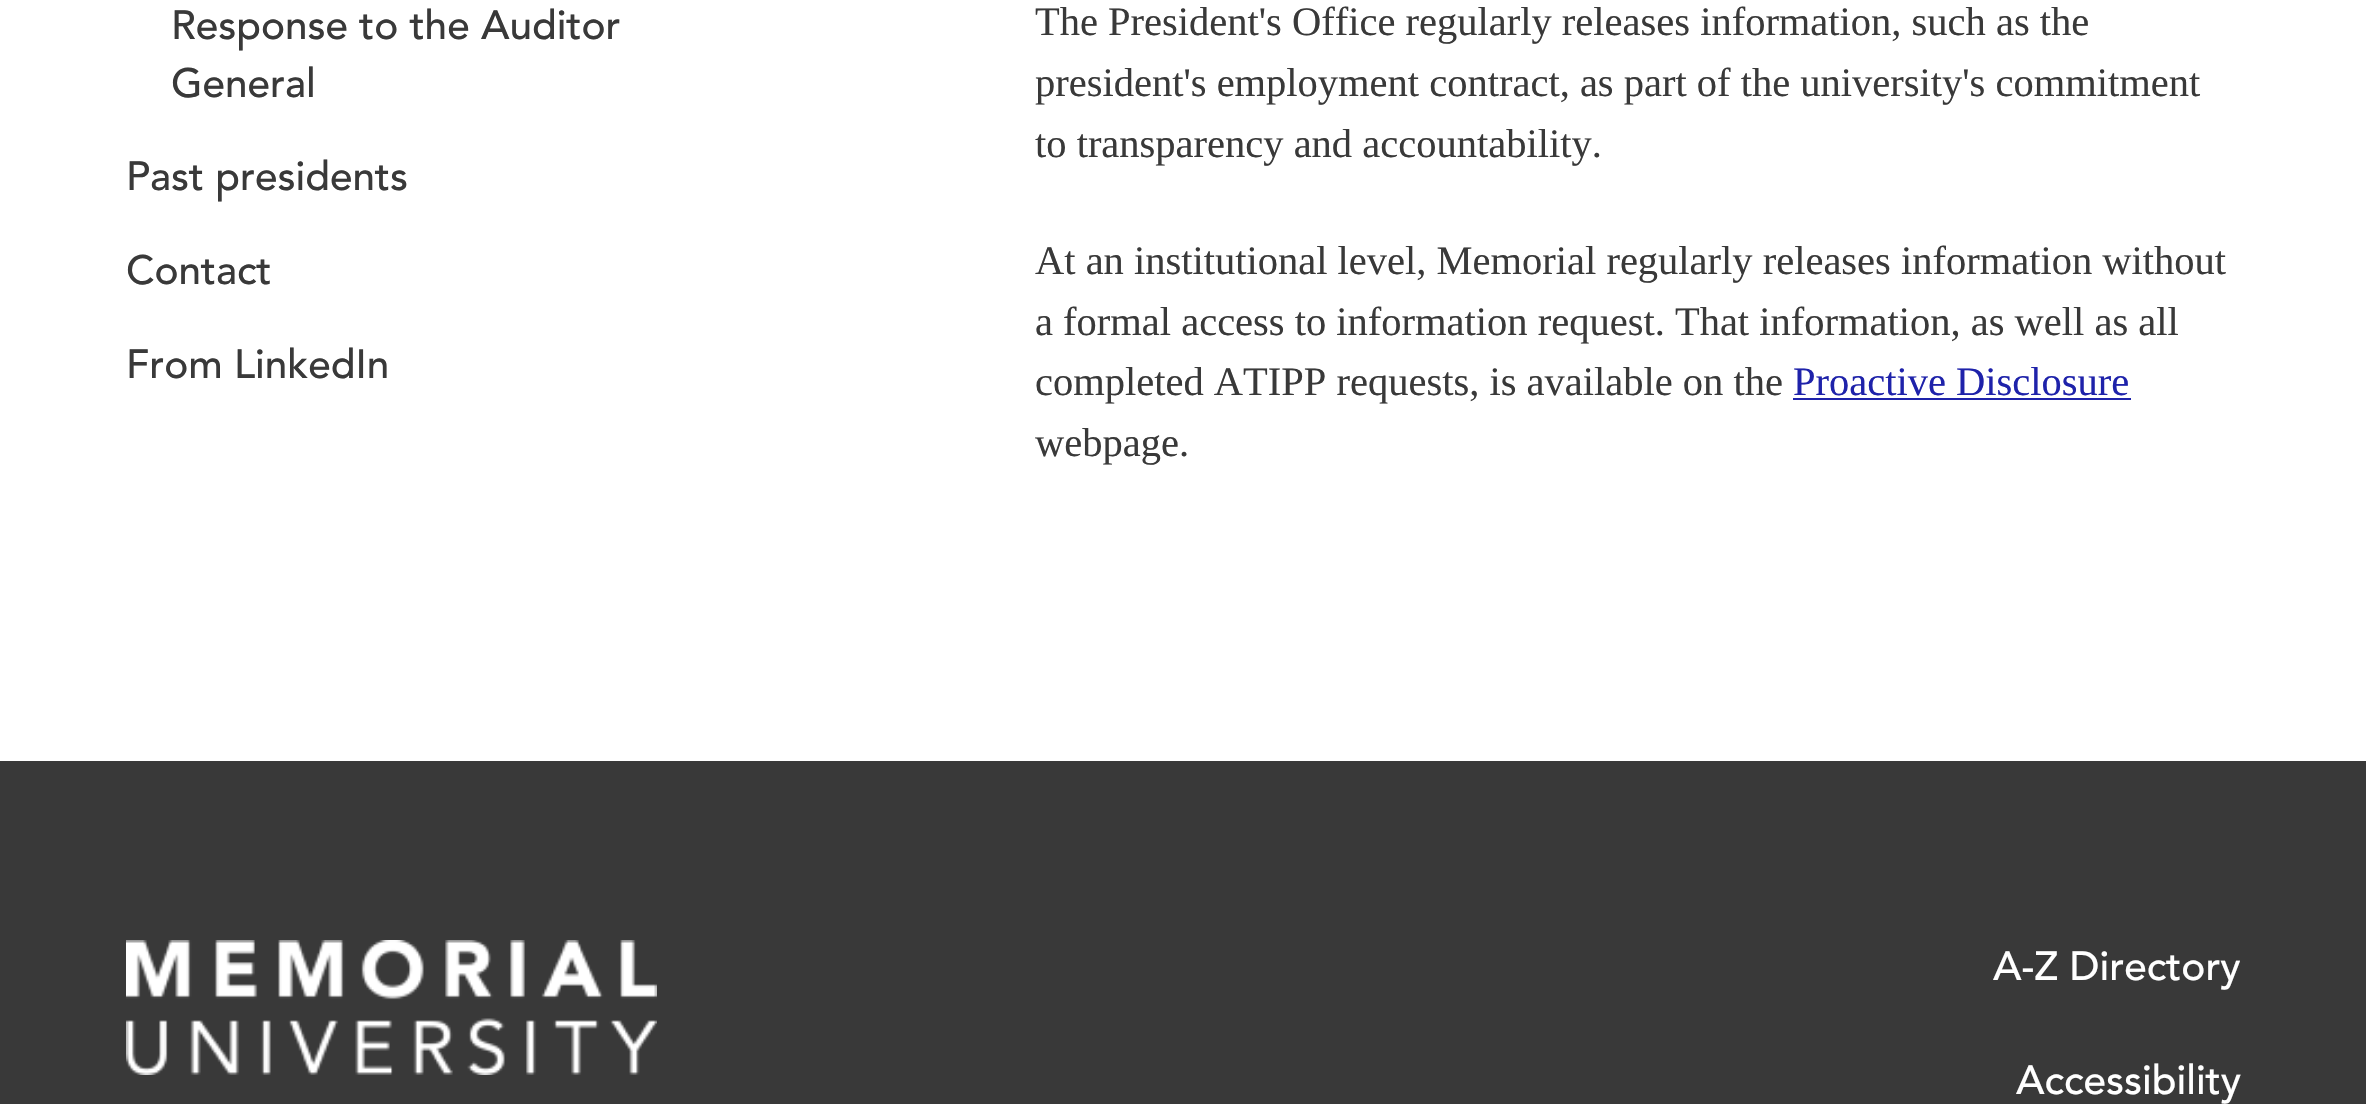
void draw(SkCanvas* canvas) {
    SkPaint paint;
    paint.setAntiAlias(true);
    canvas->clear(0xFFFFFFFF);
    SkFont font1(fontMgr->matchFamilyStyle("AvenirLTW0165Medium", SkFontStyle(500, SkFontStyle::kNormal_Width, SkFontStyle::kUpright_Slant)), 40.5f);
    font1.setSubpixel(true);
    paint.setColor(0xFF393939);
    canvas->drawString("Response to the Auditor", 171, 39, font1, paint);
    canvas->drawString("General", 171, 97, font1, paint);
    canvas->drawString("Past presidents", 126, 190, font1, paint);
    canvas->drawString("Contact", 126, 284, font1, paint);
    canvas->drawString("From LinkedIn", 126, 378, font1, paint);
    SkFont font2(fontMgr->matchFamilyStyle("Liberation Serif", SkFontStyle::Normal()), 40.5f);
    font2.setSubpixel(true);
    canvas->drawString("The President's Office regularly releases information, such as the", 1035, 35, font2, paint);
    canvas->drawString("president's employment contract, as part of the university's commitment", 1035, 96, font2, paint);
    canvas->drawString("to transparency and accountability.", 1035, 157, font2, paint);
    canvas->drawString("At an institutional level, Memorial regularly releases information without", 1035, 274, font2, paint);
    canvas->drawString("a formal access to information request. That information, as well as all", 1035, 335, font2, paint);
    canvas->drawString("completed ATIPP requests, is available on the", 1035, 395, font2, paint);
    paint.setColor(0xFF1E22AA);
    canvas->drawString("Proactive Disclosure", 1793, 395, font2, paint);
    canvas->drawRect(SkRect::MakeXYWH(1793, 398, 338, 2), paint);
    paint.setColor(0xFF393939);
    canvas->drawString("webpage.", 1035, 456, font2, paint);
    canvas->drawRect(SkRect::MakeXYWH(0, 761, 2366, 343), paint);
    canvas->drawImageRect(SkImages::DeferredFromEncodedData(SkData::MakeFromFileName("img1.png")), SkRect::MakeXYWH(126, 940, 531, 135), SkSamplingOptions());
    paint.setColor(0xFFFFFFFF);
    canvas->drawString("A-Z Directory", 1993, 980, font1, paint);
    canvas->drawString("Accessibility", 2016, 1094, font1, paint);
}
